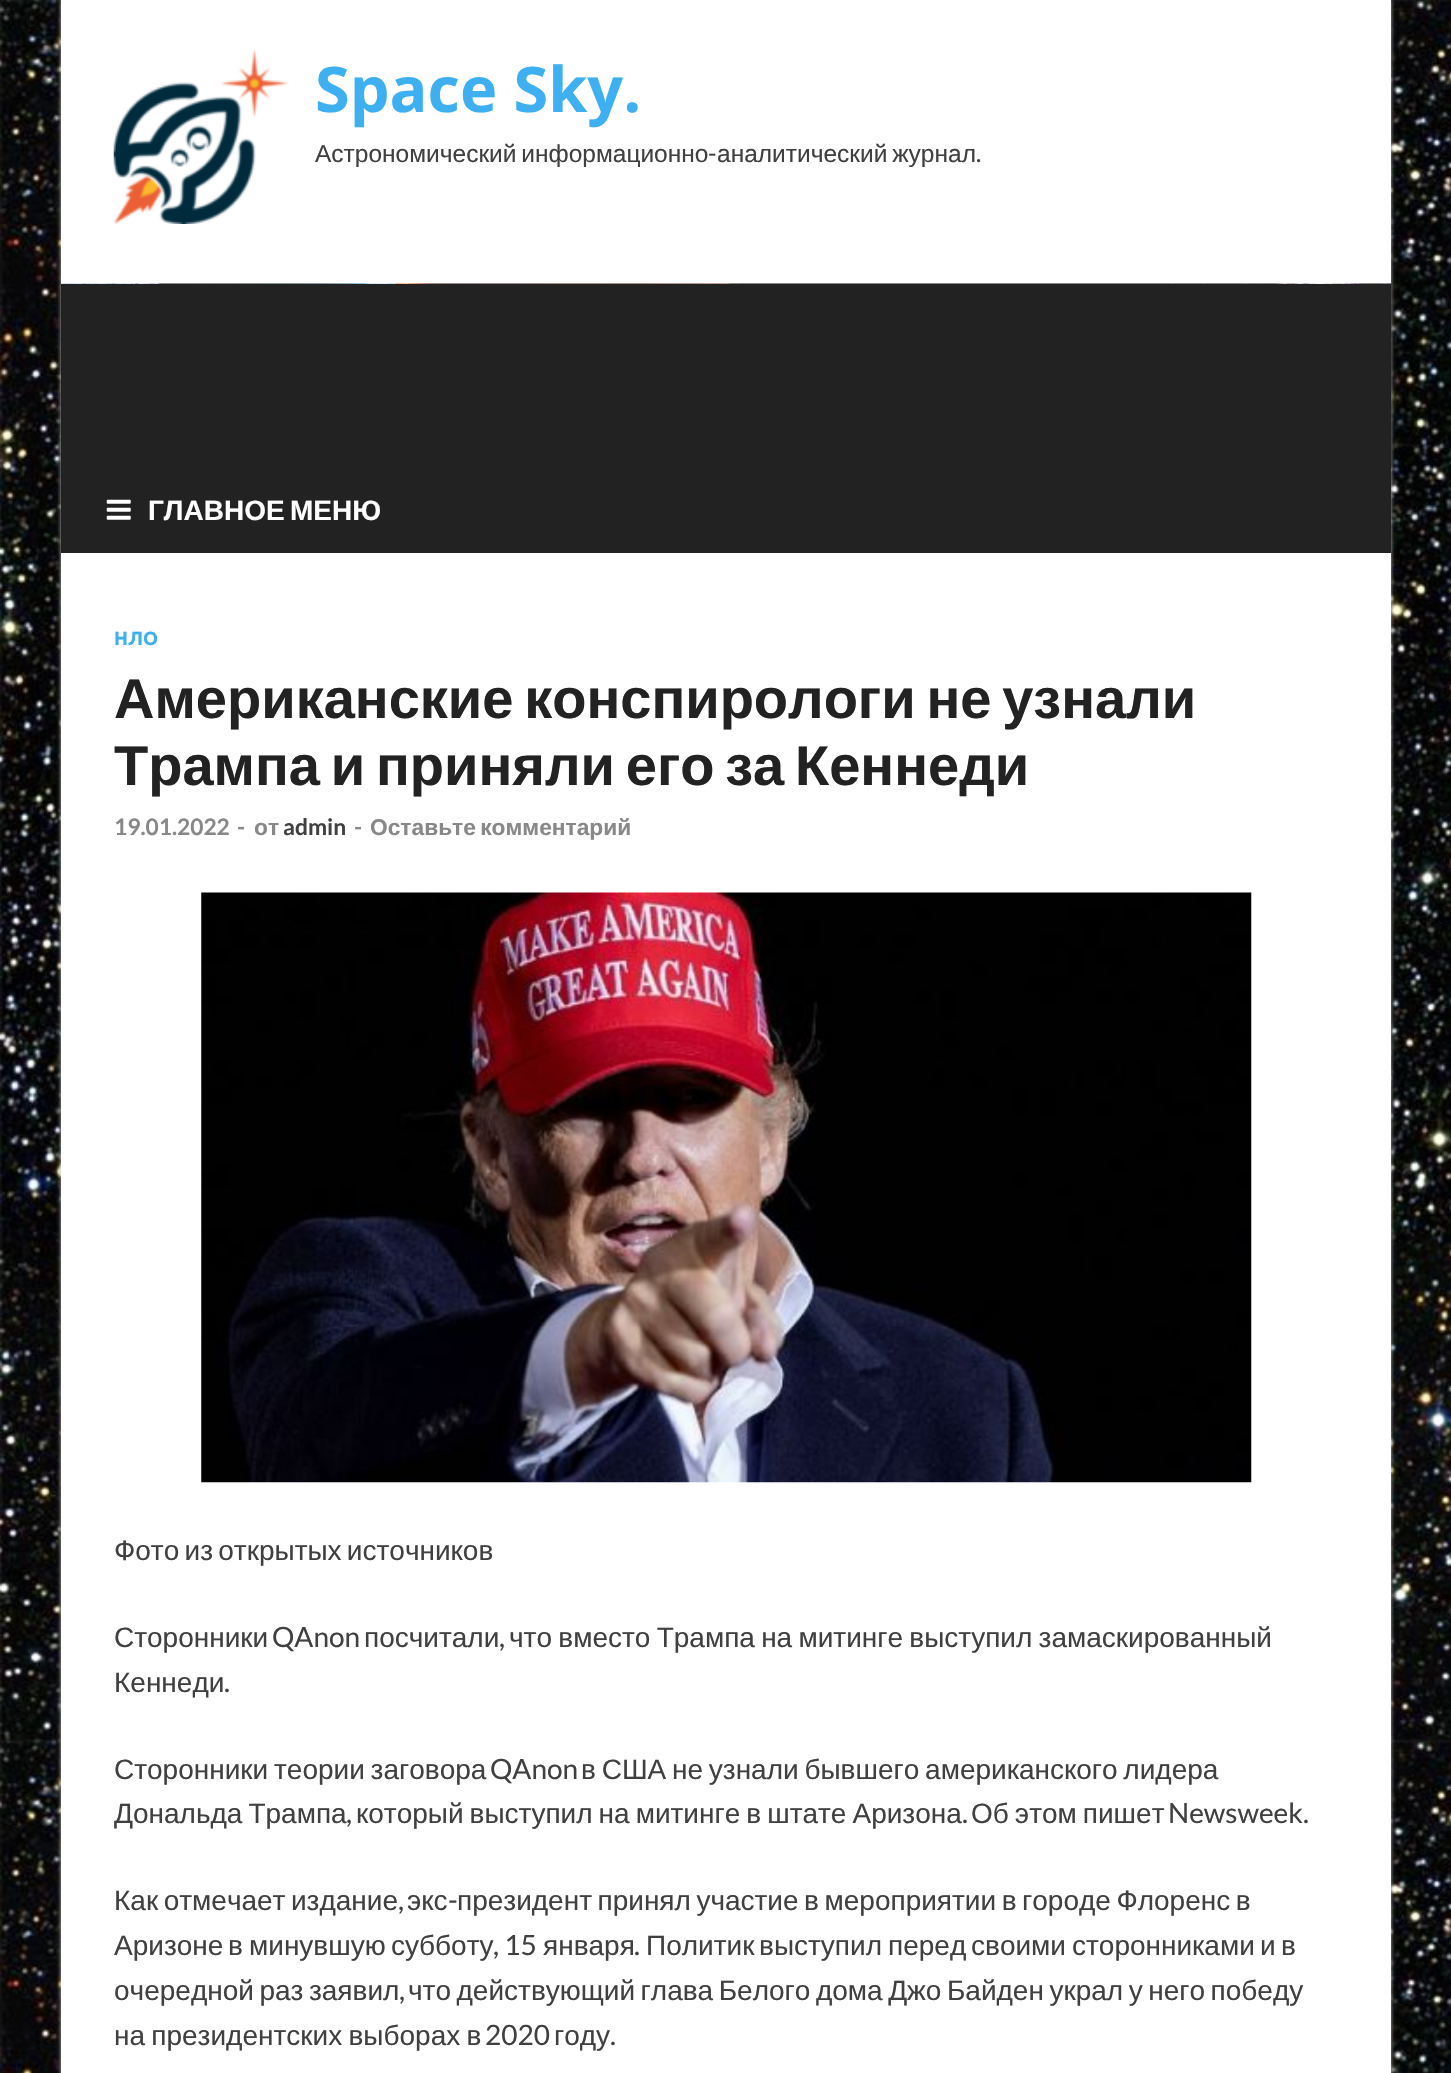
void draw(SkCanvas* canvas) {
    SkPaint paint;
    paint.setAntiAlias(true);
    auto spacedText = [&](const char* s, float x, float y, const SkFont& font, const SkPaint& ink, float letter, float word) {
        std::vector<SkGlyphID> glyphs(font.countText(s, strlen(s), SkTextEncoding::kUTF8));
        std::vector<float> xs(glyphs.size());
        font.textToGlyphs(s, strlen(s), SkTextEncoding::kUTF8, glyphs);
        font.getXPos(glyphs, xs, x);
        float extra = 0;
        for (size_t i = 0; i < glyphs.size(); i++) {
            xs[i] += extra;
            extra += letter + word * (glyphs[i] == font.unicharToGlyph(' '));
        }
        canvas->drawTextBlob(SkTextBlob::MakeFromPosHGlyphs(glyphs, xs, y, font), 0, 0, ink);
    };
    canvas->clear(0xFFFFFFFF);
    canvas->drawImageRect(SkImages::DeferredFromEncodedData(SkData::MakeFromFileName("img1.png")), SkRect::MakeXYWH(0, 0, 1451, 2073), SkSamplingOptions());
    paint.setColor(0xFFBBBBBB);
    paint.setMaskFilter(SkMaskFilter::MakeBlur(kNormal_SkBlurStyle, 2));
    canvas->drawRect(SkRect::MakeXYWH(61, 0, 1330, 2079), paint);
    paint.setMaskFilter(nullptr);
    paint.setColor(0xFFFFFFFF);
    canvas->drawRect(SkRect::MakeXYWH(61, 0, 1330, 2073), paint);
    canvas->drawImageRect(SkImages::DeferredFromEncodedData(SkData::MakeFromFileName("img2.png")), SkRect::MakeXYWH(113, 49, 176, 175), SkSamplingOptions());
    SkFont font1(fontMgr->matchFamilyStyle("Open Sans", SkFontStyle::Bold()), 63);
    font1.setSubpixel(true);
    paint.setColor(0xFF3EB0F2);
    canvas->drawString("Space Sky.", 315, 112, font1, paint);
    SkFont font2(fontMgr->matchFamilyStyle("Liberation Sans", SkFontStyle::Normal()), 24.5f);
    font2.setSubpixel(true);
    paint.setColor(0xFF404040);
    spacedText("Астрономический информационно", 315, 162, font2, paint, 0, -2);
    SkFont font3(fontMgr->matchFamilyStyle("Lato", SkFontStyle::Normal()), 24.5f);
    font3.setSubpixel(true);
    canvas->drawString("-", 708, 162, font3, paint);
    spacedText("аналитический журнал", 717, 162, font2, paint, 0, -2);
    canvas->drawString(".", 976, 162, font3, paint);
    canvas->drawImageRect(SkImages::DeferredFromEncodedData(SkData::MakeFromFileName("img3.png")), SkRect::MakeXYWH(61, 283, 1331, 186), SkSamplingOptions());
    paint.setColor(0xFF222222);
    canvas->drawRect(SkRect::MakeXYWH(61, 284, 1330, 269), paint);
    canvas->drawImageRect(SkImages::DeferredFromEncodedData(SkData::MakeFromFileName("img4.png")), SkRect::MakeXYWH(106, 499, 25, 21), SkSamplingOptions());
    SkFont font4(fontMgr->matchFamilyStyle("Liberation Sans", SkFontStyle::Bold()), 28);
    font4.setSubpixel(true);
    paint.setColor(0xFFFFFFFF);
    spacedText("ГЛАВНОЕ МЕНЮ", 148, 520, font4, paint, 0, -2.5f);
    SkFont font5(fontMgr->matchFamilyStyle("Ubuntu", SkFontStyle::Bold()), 19);
    font5.setSubpixel(true);
    paint.setColor(0xFF3EB0F2);
    canvas->drawString("НЛО", 114, 645, font5, paint);
    SkFont font6(fontMgr->matchFamilyStyle("Liberation Sans", SkFontStyle::Bold()), 56);
    font6.setSubpixel(true);
    paint.setColor(0xFF222222);
    spacedText("Американские конспирологи не узнали", 114, 718, font6, paint, 0, -4.75f);
    spacedText("Трампа и приняли его за Кеннеди", 114, 785, font6, paint, 0, -4.75f);
    SkFont font7(fontMgr->matchFamilyStyle("Lato", SkFontStyle::Bold()), 22.75f);
    font7.setSubpixel(true);
    paint.setColor(0xFF888888);
    canvas->drawString("19.01.2022", 114, 835, font7, paint);
    canvas->drawString("-", 237, 835, font7, paint);
    SkFont font8(fontMgr->matchFamilyStyle("Liberation Sans", SkFontStyle::Bold()), 22.75f);
    font8.setSubpixel(true);
    canvas->drawString("от", 254, 835, font8, paint);
    paint.setColor(0xFF404040);
    canvas->drawString("admin", 283, 835, font7, paint);
    paint.setColor(0xFF888888);
    canvas->drawString("-", 354, 835, font7, paint);
    spacedText("Оставьте комментарий", 370, 835, font8, paint, 0, -2);
    canvas->drawImageRect(SkImages::DeferredFromEncodedData(SkData::MakeFromFileName("img5.png")), SkRect::MakeXYWH(201, 892, 1051, 591), SkSamplingOptions());
    SkFont font9(fontMgr->matchFamilyStyle("Liberation Sans", SkFontStyle::Normal()), 28);
    font9.setSubpixel(true);
    paint.setColor(0xFF404040);
    spacedText("Фото из открытых источников", 114, 1560, font9, paint, 0, -2.5f);
    canvas->drawString("Сторонники", 114, 1647, font9, paint);
    SkFont font10(fontMgr->matchFamilyStyle("Lato", SkFontStyle::Normal()), 28);
    font10.setSubpixel(true);
    canvas->drawString("QAnon", 272, 1647, font10, paint);
    canvas->drawString("посчитали", 364, 1647, font9, paint);
    canvas->drawString(",", 499, 1647, font10, paint);
    spacedText("что вместо Трампа на митинге выступил замаскированный", 509, 1647, font9, paint, 0, -1.5f);
    canvas->drawString("Кеннеди", 114, 1692, font9, paint);
    canvas->drawString(".", 224, 1692, font10, paint);
    spacedText("Сторонники теории заговора", 114, 1779, font9, paint, 0, -2);
    canvas->drawString("QAnon", 490, 1779, font10, paint);
    spacedText("в США не узнали бывшего американского лидера", 581, 1779, font9, paint, 0, -2);
    spacedText("Дональда Трампа", 114, 1823, font9, paint, 0, -1.75f);
    canvas->drawString(",", 346, 1823, font10, paint);
    spacedText("который выступил на митинге в штате Аризона", 356, 1823, font9, paint, 0, -1.75f);
    canvas->drawString(".", 962, 1823, font10, paint);
    spacedText("Об этом пишет", 971, 1823, font9, paint, 0, -1.75f);
    canvas->drawString("Newsweek.", 1168, 1823, font10, paint);
    spacedText("Как отмечает издание", 114, 1910, font9, paint, 0, -2.25f);
    canvas->drawString("экс", 407, 1910, font9, paint);
    canvas->drawString("-", 448, 1910, font10, paint);
    spacedText("президент принял участие в мероприятии в городе Флоренс в", 457, 1910, font9, paint, 0, -2.25f);
    canvas->drawString(",", 398, 1910, font10, paint);
    canvas->drawString("Аризоне", 114, 1955, font9, paint);
    canvas->drawString("в", 228, 1955, font9, paint);
    canvas->drawString("минувшую", 249, 1955, font9, paint);
    canvas->drawString("субботу", 391, 1955, font9, paint);
    canvas->drawString(", 15", 493, 1955, font10, paint);
    canvas->drawString("января", 543, 1955, font9, paint);
    canvas->drawString(".", 634, 1955, font10, paint);
    canvas->drawString("Политик", 646, 1955, font9, paint);
    canvas->drawString("выступил", 759, 1955, font9, paint);
    canvas->drawString("перед", 888, 1955, font9, paint);
    canvas->drawString("своими", 971, 1955, font9, paint);
    canvas->drawString("сторонниками", 1072, 1955, font9, paint);
    canvas->drawString("и", 1260, 1955, font9, paint);
    canvas->drawString("в", 1281, 1955, font9, paint);
    spacedText("очередной раз заявил", 114, 2000, font9, paint, 0, -2.25f);
    canvas->drawString(",", 399, 2000, font10, paint);
    spacedText("что действующий глава Белого дома Джо Байден украл у него победу", 408, 2000, font9, paint, 0, -2.25f);
    spacedText("на президентских выборах в", 114, 2045, font9, paint, 0, -1.5f);
    canvas->drawString("2020", 485, 2045, font10, paint);
    canvas->drawString("году", 554, 2045, font9, paint);
    canvas->drawString(".", 610, 2045, font10, paint);
}
